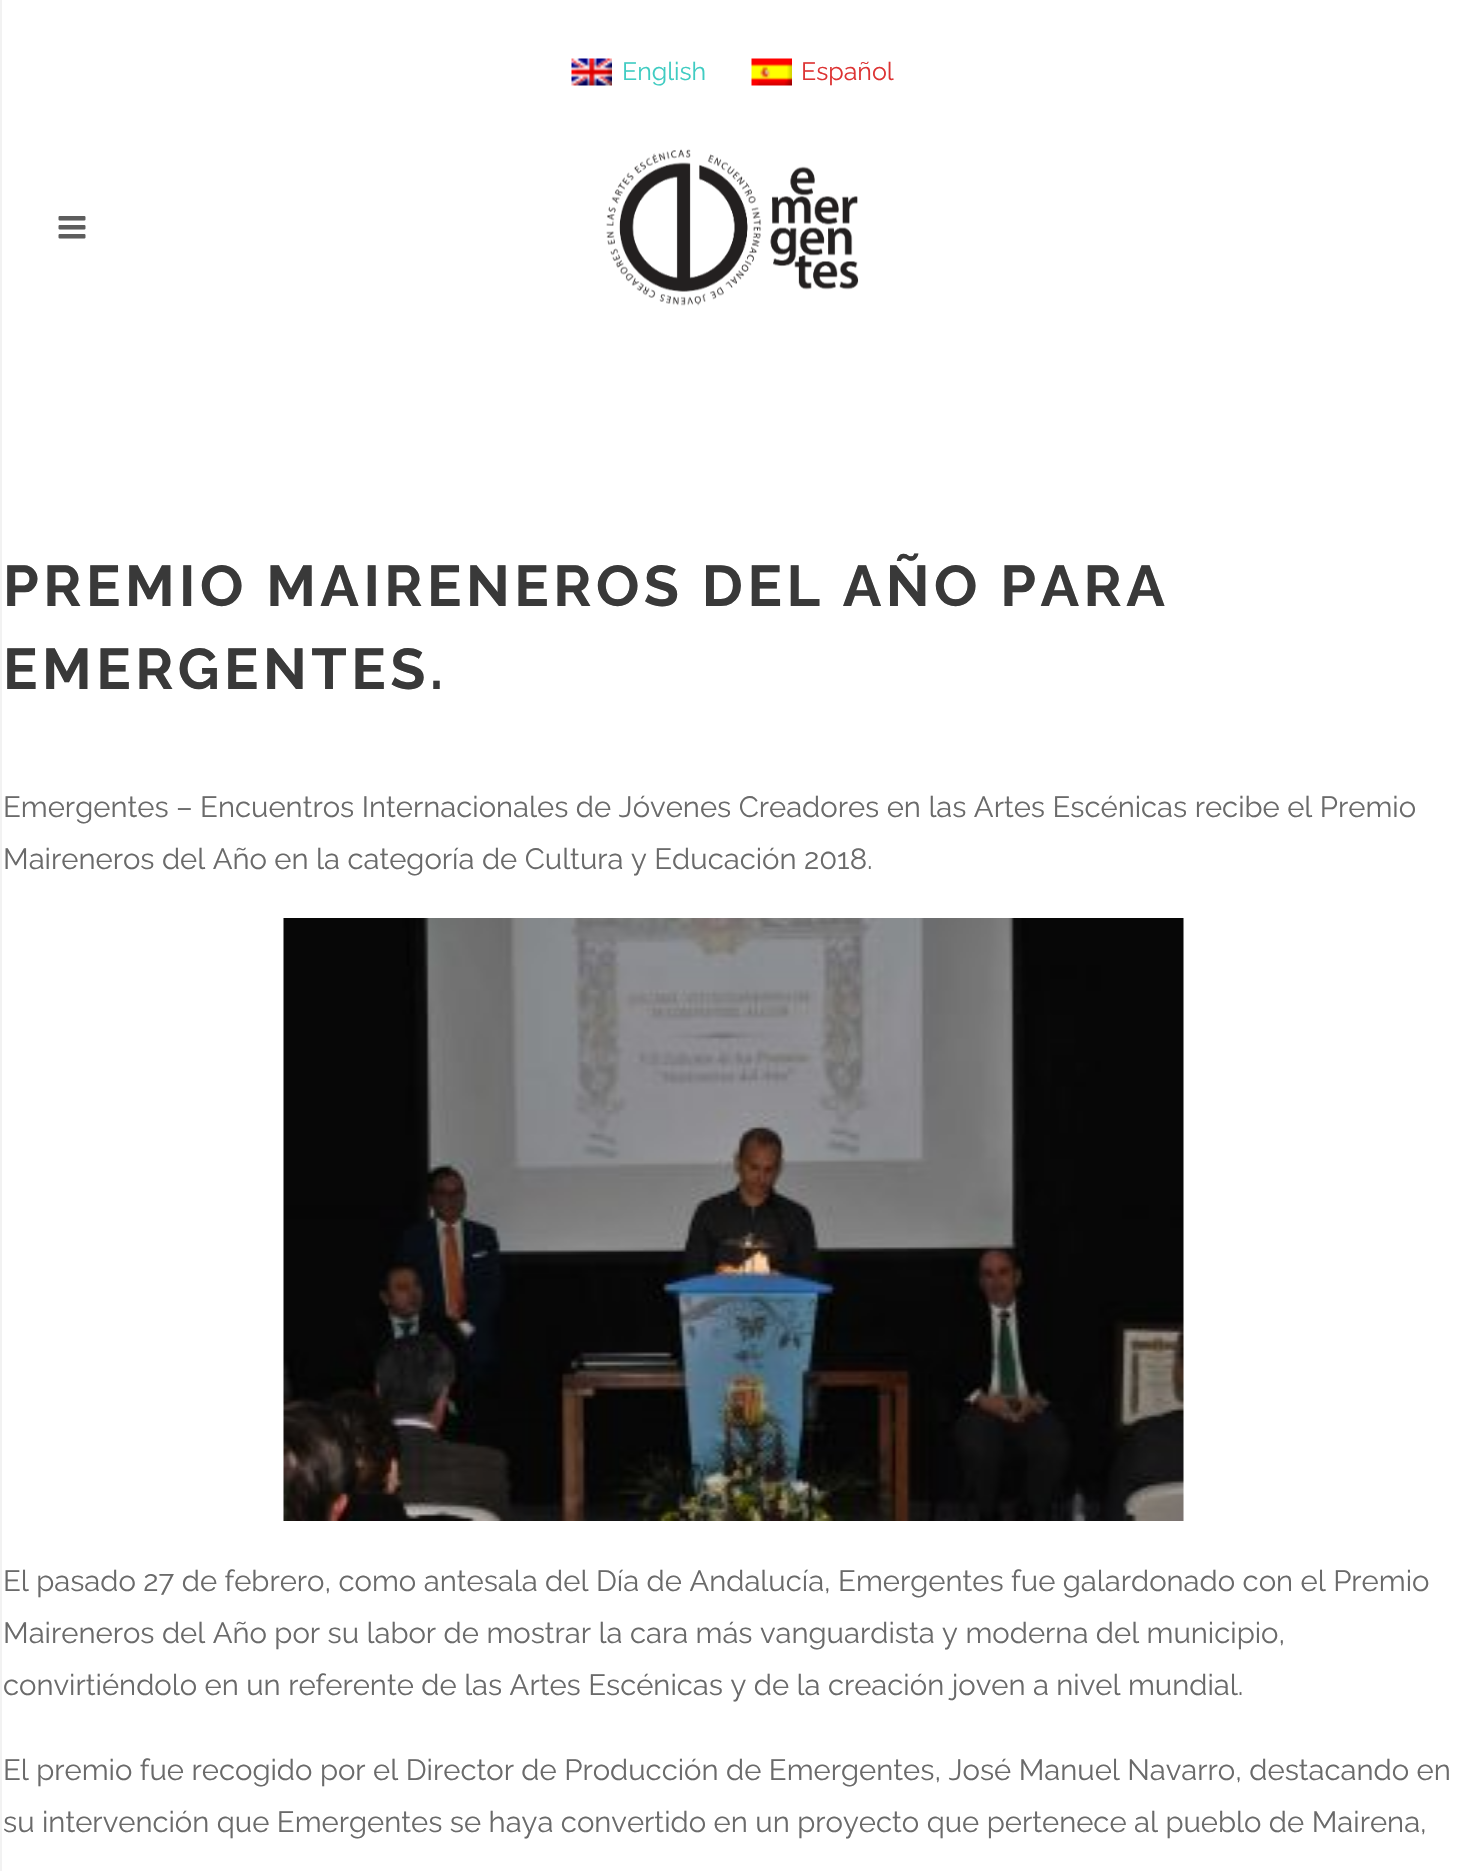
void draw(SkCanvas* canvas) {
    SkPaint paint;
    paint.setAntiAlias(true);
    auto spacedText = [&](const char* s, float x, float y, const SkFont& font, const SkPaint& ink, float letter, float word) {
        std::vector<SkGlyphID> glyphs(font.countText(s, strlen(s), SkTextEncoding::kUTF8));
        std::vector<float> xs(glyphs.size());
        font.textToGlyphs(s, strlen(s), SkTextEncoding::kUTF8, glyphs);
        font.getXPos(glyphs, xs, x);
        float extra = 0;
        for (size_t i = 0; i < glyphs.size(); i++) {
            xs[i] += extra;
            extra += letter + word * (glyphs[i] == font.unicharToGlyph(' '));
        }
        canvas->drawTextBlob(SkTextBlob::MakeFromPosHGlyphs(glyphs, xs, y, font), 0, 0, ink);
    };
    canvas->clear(0xFFF2F2F2);
    paint.setColor(0xFFFFFFFF);
    canvas->drawRect(SkRect::MakeXYWH(2, 0, 1461, 340), paint);
    canvas->drawImageRect(SkImages::DeferredFromEncodedData(SkData::MakeFromFileName("img1.png")), SkRect::MakeXYWH(571, 58, 41, 28), SkSamplingOptions());
    SkFont font1(fontMgr->matchFamilyStyle("Raleway", SkFontStyle::Normal()), 25);
    font1.setSubpixel(true);
    paint.setColor(0xFF3FCCC2);
    canvas->drawString("English", 622, 80, font1, paint);
    canvas->drawImageRect(SkImages::DeferredFromEncodedData(SkData::MakeFromFileName("img2.png")), SkRect::MakeXYWH(751, 58, 41, 28), SkSamplingOptions());
    paint.setColor(0xFFDD3333);
    canvas->drawString("Español", 801, 80, font1, paint);
    canvas->drawImageRect(SkImages::DeferredFromEncodedData(SkData::MakeFromFileName("img3.png")), SkRect::MakeXYWH(58, 216, 28, 23), SkSamplingOptions());
    canvas->drawImageRect(SkImages::DeferredFromEncodedData(SkData::MakeFromFileName("img4.png")), SkRect::MakeXYWH(606, 149, 253, 157), SkSamplingOptions());
    paint.setColor(0xFFFFFFFF);
    canvas->drawRect(SkRect::MakeXYWH(2, 340, 1461, 1531), paint);
    SkFont font2(fontMgr->matchFamilyStyle("Raleway", SkFontStyle::Bold()), 57.4f);
    font2.setSubpixel(true);
    paint.setColor(0xFF393939);
    spacedText("PREMIO MAIRENEROS DEL AÑO PARA", 3, 606, font2, paint, 4.5f, 0);
    spacedText("EMERGENTES.", 3, 689, font2, paint, 4.5f, 0);
    SkFont font3(fontMgr->matchFamilyStyle("Raleway", SkFontStyle::Normal()), 29.25f);
    font3.setSubpixel(true);
    paint.setColor(0xFF6A6A6A);
    canvas->drawString("Emergentes – Encuentros Internacionales de Jóvenes Creadores en las Artes Escénicas recibe el Premio", 3, 817, font3, paint);
    canvas->drawString("Maireneros del Año en la categoría de Cultura y Educación 2018.", 3, 869, font3, paint);
    canvas->drawImageRect(SkImages::DeferredFromEncodedData(SkData::MakeFromFileName("img5.png")), SkRect::MakeXYWH(283, 918, 901, 603), SkSamplingOptions());
    canvas->drawString("El pasado 27 de febrero, como antesala del Día de Andalucía, Emergentes fue galardonado con el Premio", 3, 1591, font3, paint);
    canvas->drawString("Maireneros del Año por su labor de mostrar la cara más vanguardista y moderna del municipio,", 3, 1643, font3, paint);
    canvas->drawString("convirtiéndolo en un referente de las Artes Escénicas y de la creación joven a nivel mundial.", 3, 1695, font3, paint);
    canvas->drawString("El premio fue recogido por el Director de Producción de Emergentes, José Manuel Navarro, destacando en", 3, 1780, font3, paint);
    canvas->drawString("su intervención que Emergentes se haya convertido en un proyecto que pertenece al pueblo de Mairena,", 3, 1832, font3, paint);
}
